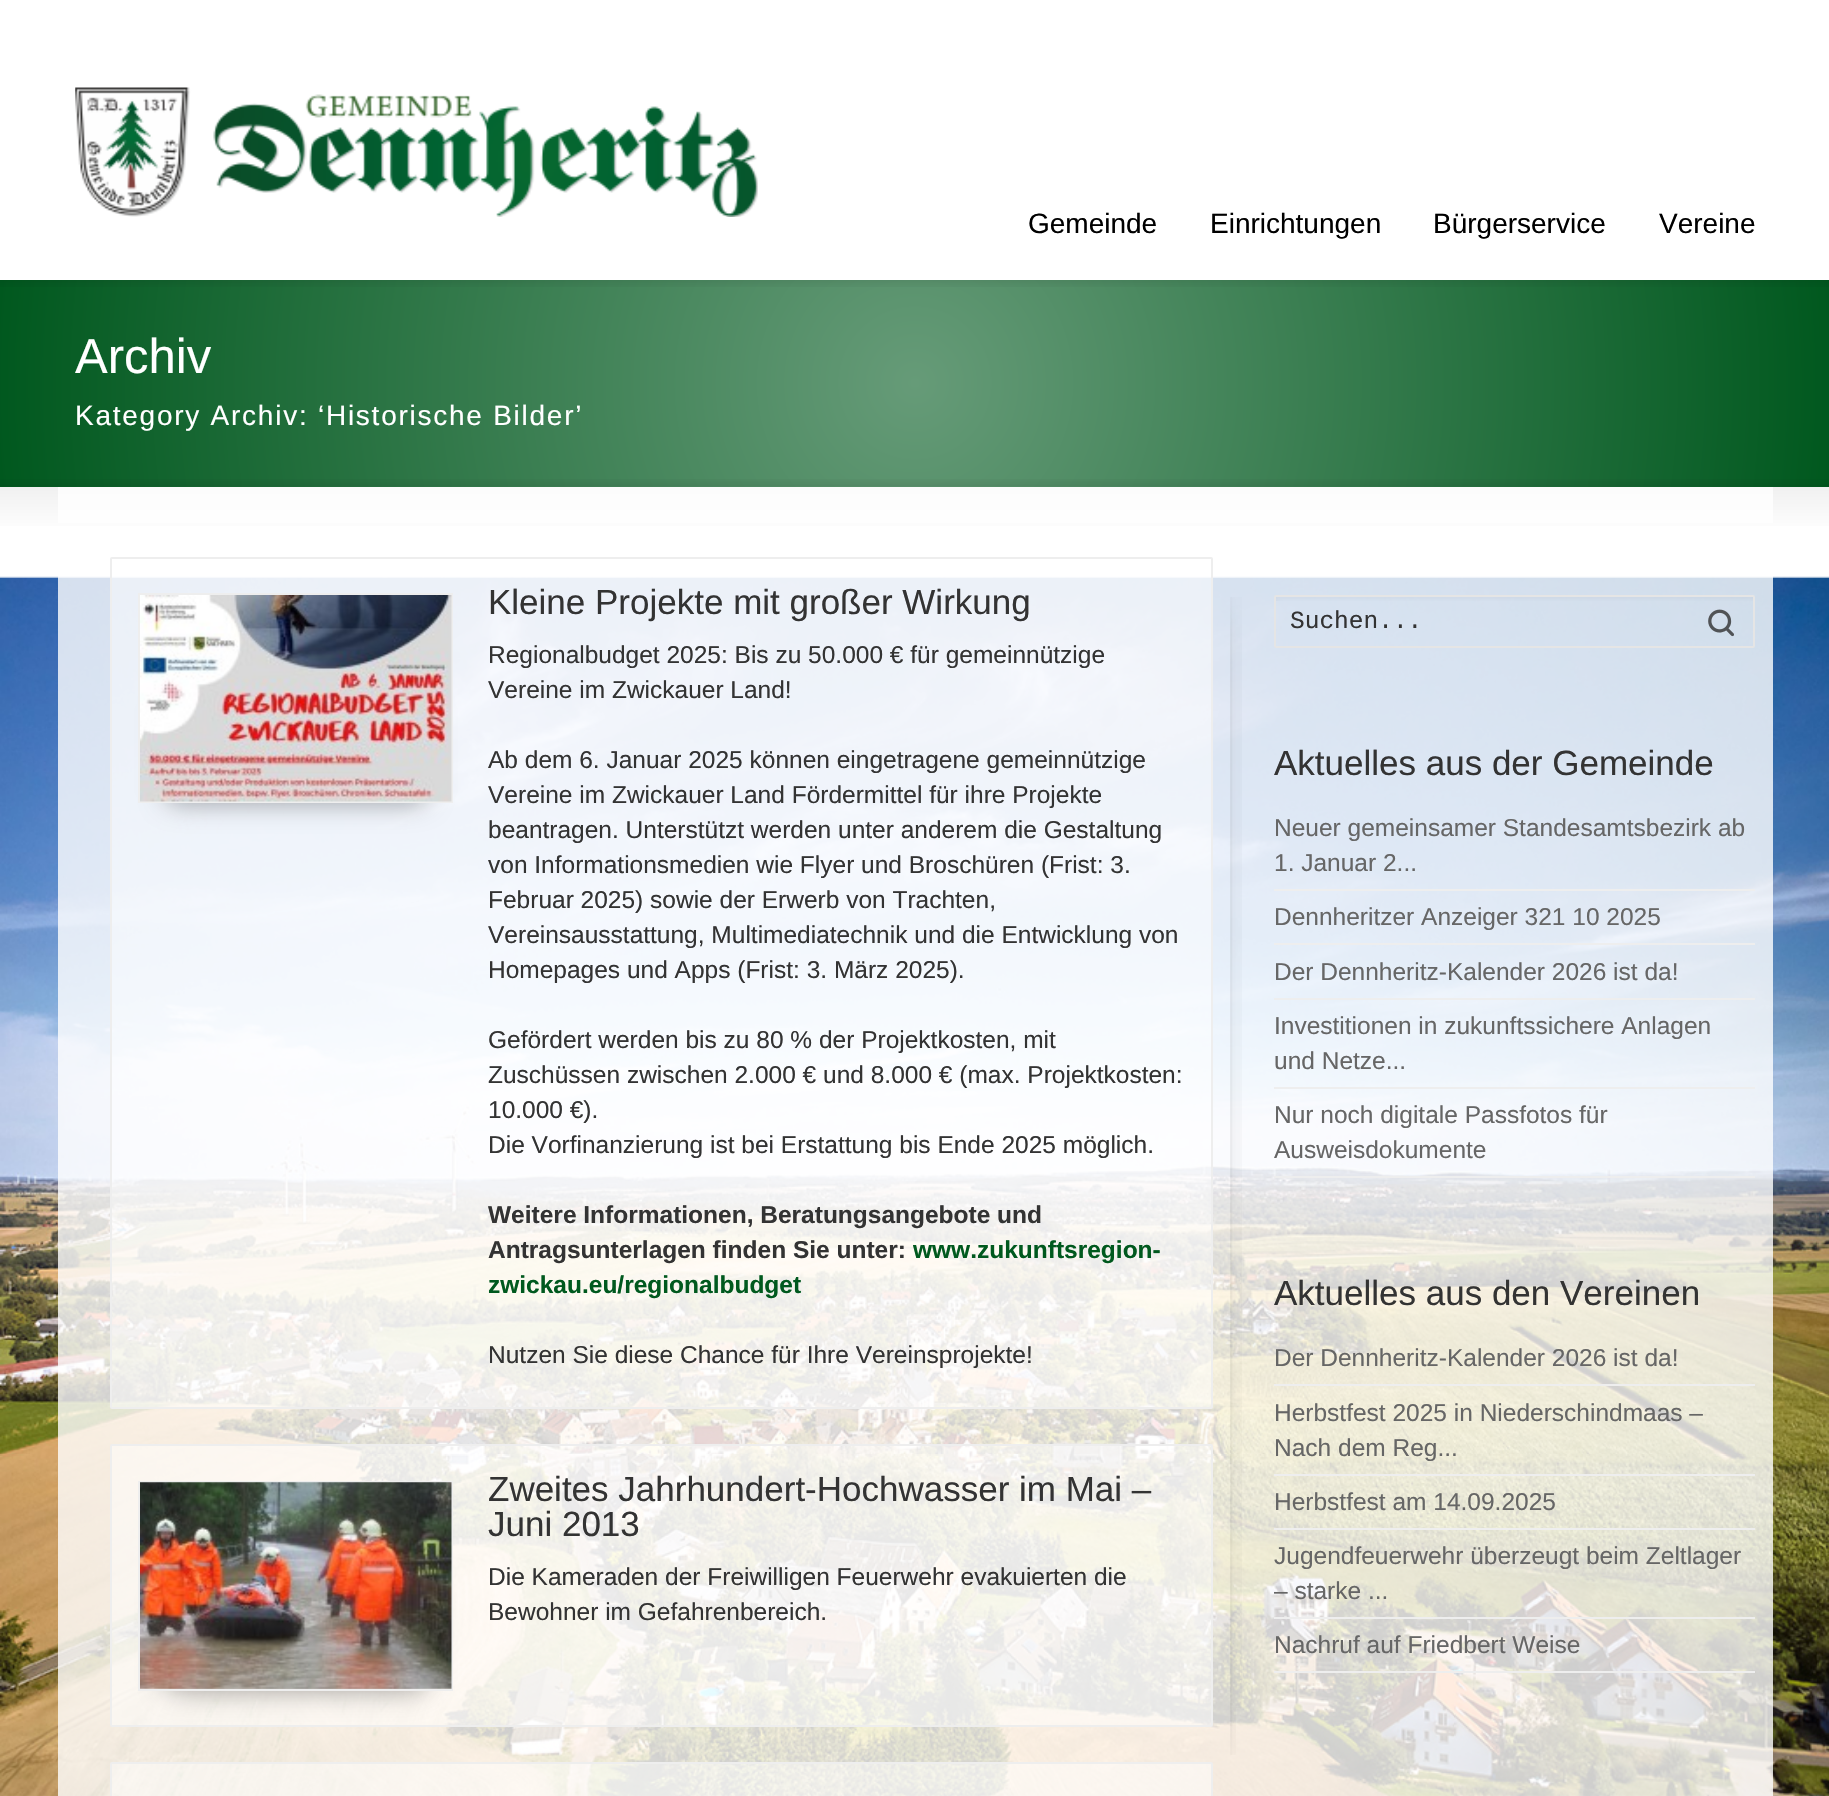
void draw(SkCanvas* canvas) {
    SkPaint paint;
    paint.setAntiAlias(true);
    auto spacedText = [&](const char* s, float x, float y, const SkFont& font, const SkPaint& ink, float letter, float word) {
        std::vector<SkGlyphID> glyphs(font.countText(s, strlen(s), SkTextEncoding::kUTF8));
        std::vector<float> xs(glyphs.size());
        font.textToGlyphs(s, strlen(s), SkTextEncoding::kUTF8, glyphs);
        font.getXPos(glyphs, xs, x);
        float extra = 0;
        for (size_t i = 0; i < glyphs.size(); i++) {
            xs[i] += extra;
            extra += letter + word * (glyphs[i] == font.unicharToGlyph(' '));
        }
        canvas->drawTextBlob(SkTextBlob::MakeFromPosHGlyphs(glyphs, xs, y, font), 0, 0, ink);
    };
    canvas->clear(0xFFFFFFFF);
    canvas->drawImageRect(SkImages::DeferredFromEncodedData(SkData::MakeFromFileName("img1.png")), SkRect::MakeXYWH(75, 87, 683, 130), SkSamplingOptions());
    SkFont font1(fontMgr->matchFamilyStyle("Liberation Sans", SkFontStyle::Normal()), 28);
    font1.setSubpixel(true);
    paint.setColor(0xFF000000);
    canvas->drawString("Gemeinde", 1028, 233, font1, paint);
    canvas->drawString("Einrichtungen", 1210, 233, font1, paint);
    canvas->drawString("Bürgerservice", 1433, 233, font1, paint);
    canvas->drawString("Vereine", 1659, 233, font1, paint);
    {
        const SkColor colors[] = {0xFF669B78, 0xFF00581E};
        const float stops[] = {0, 1};
        paint.setShader(SkGradientShader::MakeRadial({915, 383}, 921, colors, stops, 2, SkTileMode::kClamp));
        paint.setAlpha(255);
    }
    canvas->drawRect(SkRect::MakeXYWH(0, 280, 1829, 207), paint);
    canvas->drawImageRect(SkImages::DeferredFromEncodedData(SkData::MakeFromFileName("img2.png")), SkRect::MakeXYWH(0, 280, 1829, 7), SkSamplingOptions());
    SkFont font2(fontMgr->matchFamilyStyle("Liberation Sans", SkFontStyle::Normal()), 49);
    font2.setSubpixel(true);
    paint.setShader(nullptr);
    paint.setColor(0xFFFFFFFF);
    canvas->drawString("Archiv", 75, 373, font2, paint);
    spacedText("Kategory Archiv: ‘Historische Bilder’", 75, 425, font1, paint, 1.75f, 0);
    canvas->drawImageRect(SkImages::DeferredFromEncodedData(SkData::MakeFromFileName("img3.png")), SkRect::MakeXYWH(0, 479, 1829, 8), SkSamplingOptions());
    canvas->drawImageRect(SkImages::DeferredFromEncodedData(SkData::MakeFromFileName("img4.png")), SkRect::MakeXYWH(0, 576, 1829, 1220), SkSamplingOptions());
    {
        const SkColor colors[] = {0xFFF0F0F0, 0xFFFFFFFF};
        const float stops[] = {0, 1};
        const SkPoint ends[] = {{915, 486}, {915, 534}};
        paint.setShader(SkGradientShader::MakeLinear(ends, colors, stops, 2, SkTileMode::kClamp));
        paint.setAlpha(255);
    }
    canvas->drawRect(SkRect::MakeXYWH(0, 487, 1829, 39), paint);
    {
        const SkColor colors[] = {0xFFFCFCFC, 0xFFFFFFFF};
        const float stops[] = {0, 1};
        const SkPoint ends[] = {{915, 486}, {915, 534}};
        paint.setShader(SkGradientShader::MakeLinear(ends, colors, stops, 2, SkTileMode::kClamp));
        paint.setAlpha(255);
    }
    canvas->drawRect(SkRect::MakeXYWH(58, 487, 1715, 36), paint);
    paint.setShader(nullptr);
    paint.setColor(0x80FFFFFF);
    canvas->drawRoundRect(SkRect::MakeXYWH(111, 558, 1101, 850), 1, 1, paint);
    paint.setStyle(SkPaint::kStroke_Style);
    paint.setStrokeWidth(2);
    paint.setColor(0xFFEEEEEE);
    canvas->drawRoundRect(SkRect::MakeXYWH(111, 558, 1101, 850), 1, 1, paint);
    paint.setStyle(SkPaint::kFill_Style);
    paint.setColor(0x59000000);
    paint.setMaskFilter(SkMaskFilter::MakeBlur(kNormal_SkBlurStyle, 13));
    canvas->drawRoundRect(SkRect::MakeXYWH(165, 698, 262, 105), 14, 14, paint);
    paint.setMaskFilter(nullptr);
    paint.setStyle(SkPaint::kStroke_Style);
    paint.setColor(0xFFEEEEEE);
    canvas->drawRect(SkRect::MakeXYWH(139, 594, 313, 208), paint);
    canvas->drawImageRect(SkImages::DeferredFromEncodedData(SkData::MakeFromFileName("img5.png")), SkRect::MakeXYWH(140, 595, 312, 207), SkSamplingOptions());
    SkFont font3(fontMgr->matchFamilyStyle("Liberation Sans", SkFontStyle::Normal()), 35);
    font3.setSubpixel(true);
    paint.setStyle(SkPaint::kFill_Style);
    paint.setColor(0xFF333333);
    canvas->drawString("Kleine Projekte mit großer Wirkung", 488, 614, font3, paint);
    SkFont font4(fontMgr->matchFamilyStyle("Liberation Sans", SkFontStyle::Normal()), 24.5f);
    font4.setSubpixel(true);
    canvas->drawString("Regionalbudget 2025: Bis zu 50.000 € für gemeinnützige", 488, 663, font4, paint);
    canvas->drawString("Vereine im Zwickauer Land!", 488, 698, font4, paint);
    canvas->drawString("Ab dem 6. Januar 2025 können eingetragene gemeinnützige", 488, 768, font4, paint);
    canvas->drawString("Vereine im Zwickauer Land Fördermittel für ihre Projekte", 488, 803, font4, paint);
    canvas->drawString("beantragen. Unterstützt werden unter anderem die Gestaltung", 488, 838, font4, paint);
    canvas->drawString("von Informationsmedien wie Flyer und Broschüren (Frist: 3.", 488, 873, font4, paint);
    canvas->drawString("Februar 2025) sowie der Erwerb von Trachten,", 488, 908, font4, paint);
    canvas->drawString("Vereinsausstattung, Multimediatechnik und die Entwicklung von", 488, 943, font4, paint);
    canvas->drawString("Homepages und Apps (Frist: 3. März 2025).", 488, 978, font4, paint);
    canvas->drawString("Gefördert werden bis zu 80 % der Projektkosten, mit", 488, 1048, font4, paint);
    canvas->drawString("Zuschüssen zwischen 2.000 € und 8.000 € (max. Projektkosten:", 488, 1083, font4, paint);
    canvas->drawString("10.000 €).", 488, 1118, font4, paint);
    canvas->drawString("Die Vorfinanzierung ist bei Erstattung bis Ende 2025 möglich.", 488, 1153, font4, paint);
    SkFont font5(fontMgr->matchFamilyStyle("Liberation Sans", SkFontStyle::Bold()), 24.5f);
    font5.setSubpixel(true);
    canvas->drawString("Weitere Informationen, Beratungsangebote und", 488, 1223, font5, paint);
    canvas->drawString("Antragsunterlagen finden Sie unter:", 488, 1258, font5, paint);
    paint.setColor(0xFF00591E);
    canvas->drawString("www.zukunftsregion-", 913, 1258, font5, paint);
    canvas->drawString("zwickau.eu/regionalbudget", 488, 1293, font5, paint);
    paint.setColor(0xFF333333);
    canvas->drawString("Nutzen Sie diese Chance für Ihre Vereinsprojekte!", 488, 1363, font4, paint);
    paint.setColor(0x80FFFFFF);
    canvas->drawRoundRect(SkRect::MakeXYWH(111, 1445, 1101, 281), 1, 1, paint);
    paint.setStyle(SkPaint::kStroke_Style);
    paint.setColor(0xFFEEEEEE);
    canvas->drawRoundRect(SkRect::MakeXYWH(111, 1445, 1101, 281), 1, 1, paint);
    paint.setStyle(SkPaint::kFill_Style);
    paint.setColor(0x59000000);
    paint.setMaskFilter(SkMaskFilter::MakeBlur(kNormal_SkBlurStyle, 13));
    canvas->drawRoundRect(SkRect::MakeXYWH(165, 1586, 262, 105), 14, 14, paint);
    paint.setMaskFilter(nullptr);
    paint.setStyle(SkPaint::kStroke_Style);
    paint.setColor(0xFFEEEEEE);
    canvas->drawRect(SkRect::MakeXYWH(139, 1482, 313, 208), paint);
    canvas->drawImageRect(SkImages::DeferredFromEncodedData(SkData::MakeFromFileName("img6.png")), SkRect::MakeXYWH(140, 1482, 312, 207), SkSamplingOptions());
    paint.setStyle(SkPaint::kFill_Style);
    paint.setColor(0xFF333333);
    canvas->drawString("Zweites Jahrhundert-Hochwasser im Mai –", 488, 1501, font3, paint);
    canvas->drawString("Juni 2013", 488, 1536, font3, paint);
    canvas->drawString("Die Kameraden der Freiwilligen Feuerwehr evakuierten die", 488, 1585, font4, paint);
    canvas->drawString("Bewohner im Gefahrenbereich.", 488, 1620, font4, paint);
    paint.setColor(0x80FFFFFF);
    canvas->drawRoundRect(SkRect::MakeXYWH(111, 1763, 1101, 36), 1, 1, paint);
    paint.setStyle(SkPaint::kStroke_Style);
    paint.setColor(0xFFEEEEEE);
    canvas->drawRoundRect(SkRect::MakeXYWH(111, 1763, 1101, 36), 1, 1, paint);
    canvas->drawImageRect(SkImages::DeferredFromEncodedData(SkData::MakeFromFileName("img7.png")), SkRect::MakeXYWH(1230, 597, 12, 1111), SkSamplingOptions());
    canvas->drawImageRect(SkImages::DeferredFromEncodedData(SkData::MakeFromFileName("img8.png")), SkRect::MakeXYWH(1276, 597, 477, 4), SkSamplingOptions());
    paint.setColor(0xFFE5E5E5);
    canvas->drawRoundRect(SkRect::MakeXYWH(1275, 596, 479, 51), 1, 1, paint);
    SkFont font6(fontMgr->matchFamilyStyle("Liberation Mono", SkFontStyle::Normal()), 24.5f);
    font6.setSubpixel(true);
    paint.setStyle(SkPaint::kFill_Style);
    paint.setColor(0xFF333333);
    canvas->drawString("Suchen...", 1290, 628, font6, paint);
    canvas->drawImageRect(SkImages::DeferredFromEncodedData(SkData::MakeFromFileName("img9.png")), SkRect::MakeXYWH(1708, 609, 26, 28), SkSamplingOptions());
    canvas->drawString("Aktuelles aus der Gemeinde", 1274, 775, font3, paint);
    paint.setColor(0xFFEEEEEE);
    canvas->drawRect(SkRect::MakeXYWH(1274, 889, 481, 2), paint);
    paint.setColor(0xFF666666);
    canvas->drawString("Neuer gemeinsamer Standesamtsbezirk ab", 1274, 836, font4, paint);
    canvas->drawString("1. Januar 2...", 1274, 871, font4, paint);
    paint.setColor(0xFFEEEEEE);
    canvas->drawRect(SkRect::MakeXYWH(1274, 943, 481, 2), paint);
    paint.setColor(0xFF666666);
    canvas->drawString("Dennheritzer Anzeiger 321 10 2025", 1274, 925, font4, paint);
    paint.setColor(0xFFEEEEEE);
    canvas->drawRect(SkRect::MakeXYWH(1274, 998, 481, 2), paint);
    paint.setColor(0xFF666666);
    canvas->drawString("Der Dennheritz-Kalender 2026 ist da!", 1274, 980, font4, paint);
    paint.setColor(0xFFEEEEEE);
    canvas->drawRect(SkRect::MakeXYWH(1274, 1087, 481, 2), paint);
    paint.setColor(0xFF666666);
    canvas->drawString("Investitionen in zukunftssichere Anlagen", 1274, 1034, font4, paint);
    canvas->drawString("und Netze...", 1274, 1069, font4, paint);
    paint.setColor(0xFFEEEEEE);
    canvas->drawRect(SkRect::MakeXYWH(1274, 1176, 481, 2), paint);
    paint.setColor(0xFF666666);
    canvas->drawString("Nur noch digitale Passfotos für", 1274, 1123, font4, paint);
    canvas->drawString("Ausweisdokumente", 1274, 1158, font4, paint);
    paint.setColor(0xFF333333);
    canvas->drawString("Aktuelles aus den Vereinen", 1274, 1305, font3, paint);
    paint.setColor(0xFFEEEEEE);
    canvas->drawRect(SkRect::MakeXYWH(1274, 1384, 481, 2), paint);
    paint.setColor(0xFF666666);
    canvas->drawString("Der Dennheritz-Kalender 2026 ist da!", 1274, 1366, font4, paint);
    paint.setColor(0xFFEEEEEE);
    canvas->drawRect(SkRect::MakeXYWH(1274, 1474, 481, 2), paint);
    paint.setColor(0xFF666666);
    canvas->drawString("Herbstfest 2025 in Niederschindmaas –", 1274, 1421, font4, paint);
    canvas->drawString("Nach dem Reg...", 1274, 1456, font4, paint);
    paint.setColor(0xFFEEEEEE);
    canvas->drawRect(SkRect::MakeXYWH(1274, 1528, 481, 2), paint);
    paint.setColor(0xFF666666);
    canvas->drawString("Herbstfest am 14.09.2025", 1274, 1510, font4, paint);
    paint.setColor(0xFFEEEEEE);
    canvas->drawRect(SkRect::MakeXYWH(1274, 1617, 481, 2), paint);
    paint.setColor(0xFF666666);
    canvas->drawString("Jugendfeuerwehr überzeugt beim Zeltlager", 1274, 1564, font4, paint);
    canvas->drawString("– starke ...", 1274, 1599, font4, paint);
    paint.setColor(0xFFEEEEEE);
    canvas->drawRect(SkRect::MakeXYWH(1274, 1671, 481, 2), paint);
    paint.setColor(0xFF666666);
    canvas->drawString("Nachruf auf Friedbert Weise", 1274, 1653, font4, paint);
    canvas->drawImageRect(SkImages::DeferredFromEncodedData(SkData::MakeFromFileName("img10.png")), SkRect::MakeXYWH(1230, 1708, 6, 47), SkSamplingOptions());
}
